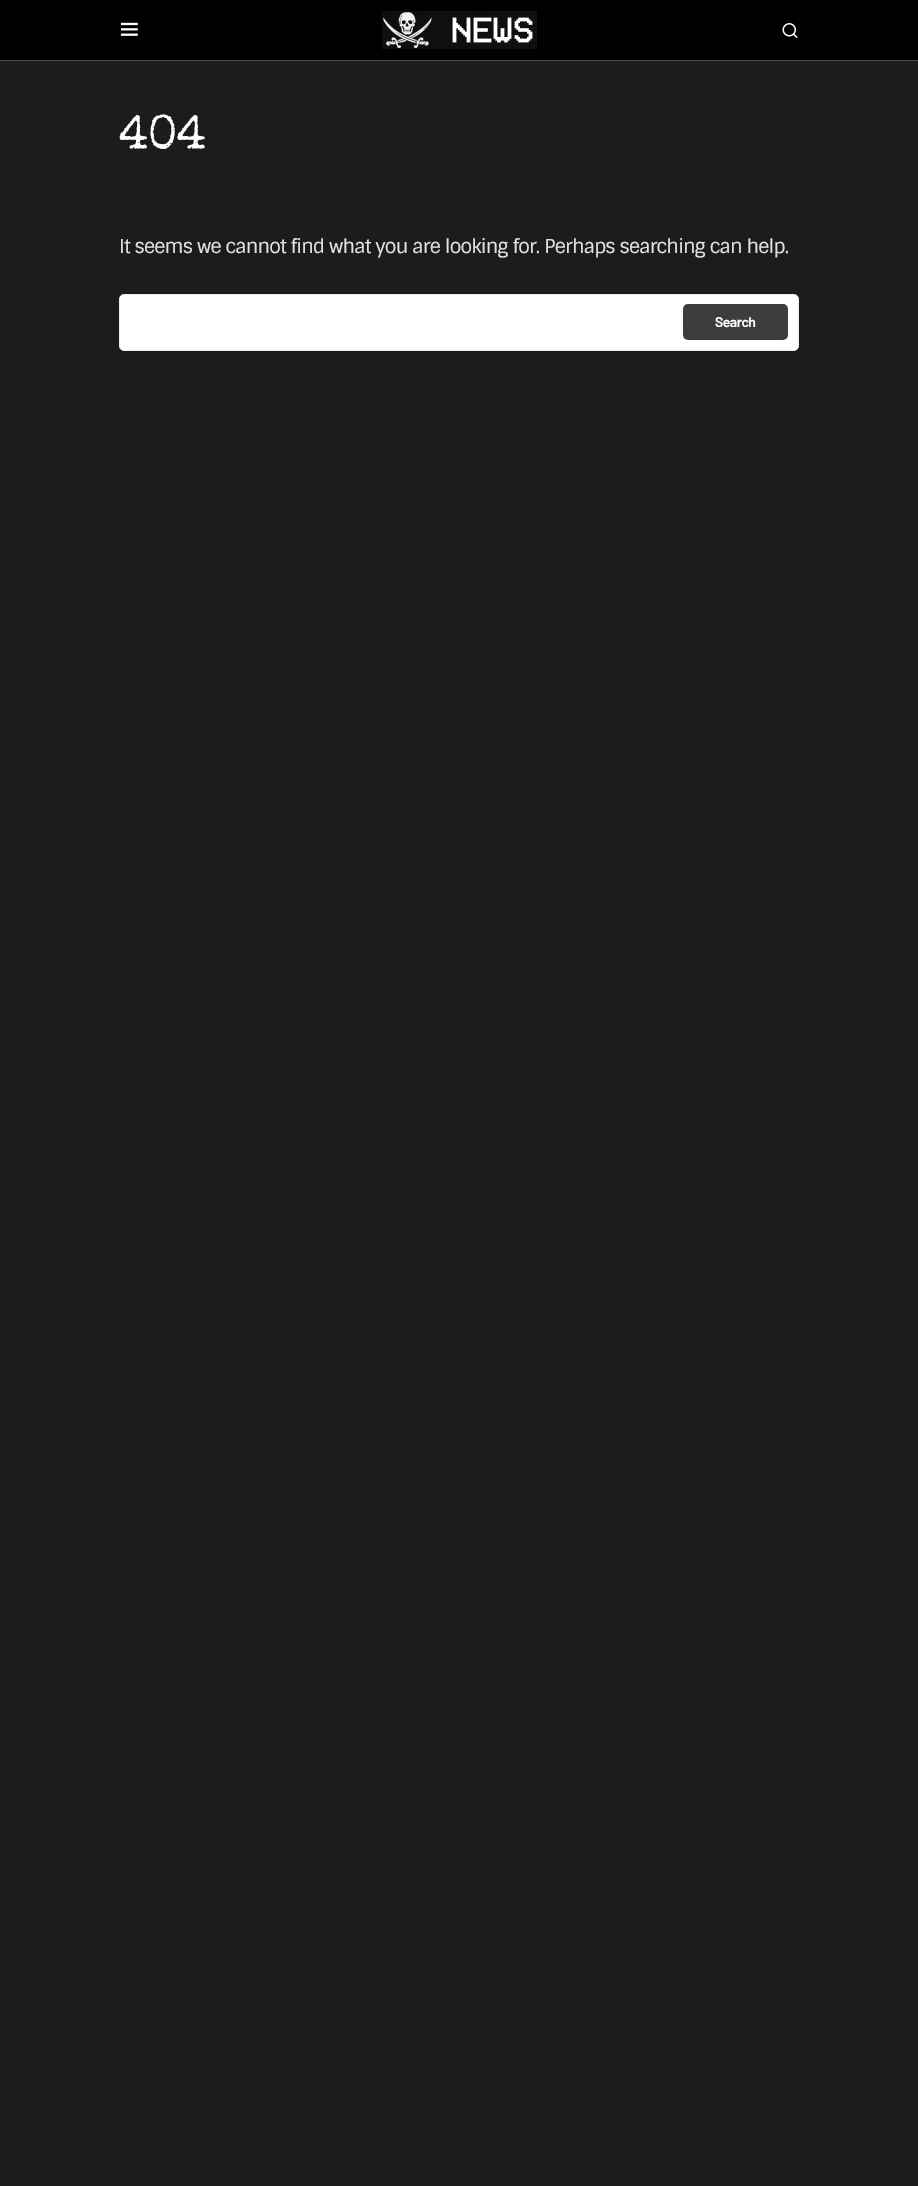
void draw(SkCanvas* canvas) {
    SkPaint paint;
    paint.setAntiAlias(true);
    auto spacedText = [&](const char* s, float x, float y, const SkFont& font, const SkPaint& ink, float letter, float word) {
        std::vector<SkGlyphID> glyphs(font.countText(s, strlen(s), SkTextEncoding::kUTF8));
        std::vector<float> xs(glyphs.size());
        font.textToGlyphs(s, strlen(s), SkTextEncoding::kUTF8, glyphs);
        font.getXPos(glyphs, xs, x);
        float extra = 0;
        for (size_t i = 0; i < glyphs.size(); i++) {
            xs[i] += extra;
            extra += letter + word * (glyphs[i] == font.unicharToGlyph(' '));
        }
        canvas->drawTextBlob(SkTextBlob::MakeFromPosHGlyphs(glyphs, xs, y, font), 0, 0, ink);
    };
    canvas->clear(0xFF1C1C1C);
    paint.setColor(0xFF000000);
    canvas->drawRect(SkRect::MakeXYWH(0, 0, 918, 60), paint);
    paint.setColor(0xFF494949);
    canvas->drawRect(SkRect::MakeXYWH(0, 60, 918, 1), paint);
    canvas->drawImageRect(SkImages::DeferredFromEncodedData(SkData::MakeFromFileName("img1.png")), SkRect::MakeXYWH(120, 22, 18, 14), SkSamplingOptions());
    canvas->drawImageRect(SkImages::DeferredFromEncodedData(SkData::MakeFromFileName("img2.png")), SkRect::MakeXYWH(382, 11, 155, 38), SkSamplingOptions());
    canvas->drawImageRect(SkImages::DeferredFromEncodedData(SkData::MakeFromFileName("img3.png")), SkRect::MakeXYWH(782, 23, 16, 15), SkSamplingOptions());
    SkFont font1(fontMgr->matchFamilyStyle("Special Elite", SkFontStyle::Normal()), 48);
    font1.setSubpixel(true);
    paint.setColor(0xFFFFFFFF);
    spacedText("404", 119, 149, font1, paint, -0.5f, 0);
    SkFont font2(fontMgr->matchFamilyStyle("Sintony", SkFontStyle::Normal()), 19.2f);
    font2.setSubpixel(true);
    paint.setColor(0xFFE1E1E1);
    spacedText("It seems we cannot find what you are looking for. Perhaps searching can help.", 119, 253, font2, paint, -0.8f, 0);
    paint.setColor(0xFFFFFFFF);
    canvas->drawRoundRect(SkRect::MakeXYWH(119.5f, 294.5f, 679, 56), 4.5f, 4.5f, paint);
    paint.setStyle(SkPaint::kStroke_Style);
    paint.setStrokeWidth(1);
    paint.setColor(0xFFE9ECEF);
    canvas->drawRoundRect(SkRect::MakeXYWH(119.5f, 294.5f, 679, 56), 4.5f, 4.5f, paint);
    paint.setStyle(SkPaint::kFill_Style);
    paint.setColor(0xFFFFFFFF);
    canvas->drawPath(SkPathBuilder().moveTo(124, 295).lineTo(683, 295).lineTo(683, 350).lineTo(124, 350).cubicTo(122, 350, 120, 348, 120, 346).lineTo(120, 299).cubicTo(120, 297, 122, 295, 124, 295).close().detach(), paint);
    paint.setColor(0xFF3D3D3D);
    canvas->drawRoundRect(SkRect::MakeXYWH(683, 304, 105, 36), 5, 5, paint);
    SkFont font3(fontMgr->matchFamilyStyle("Barlow", SkFontStyle(600, SkFontStyle::kNormal_Width, SkFontStyle::kUpright_Slant)), 14);
    font3.setSubpixel(true);
    paint.setColor(0xFFFFFFFF);
    spacedText("Search", 715, 327, font3, paint, -0.5f, 0);
}
